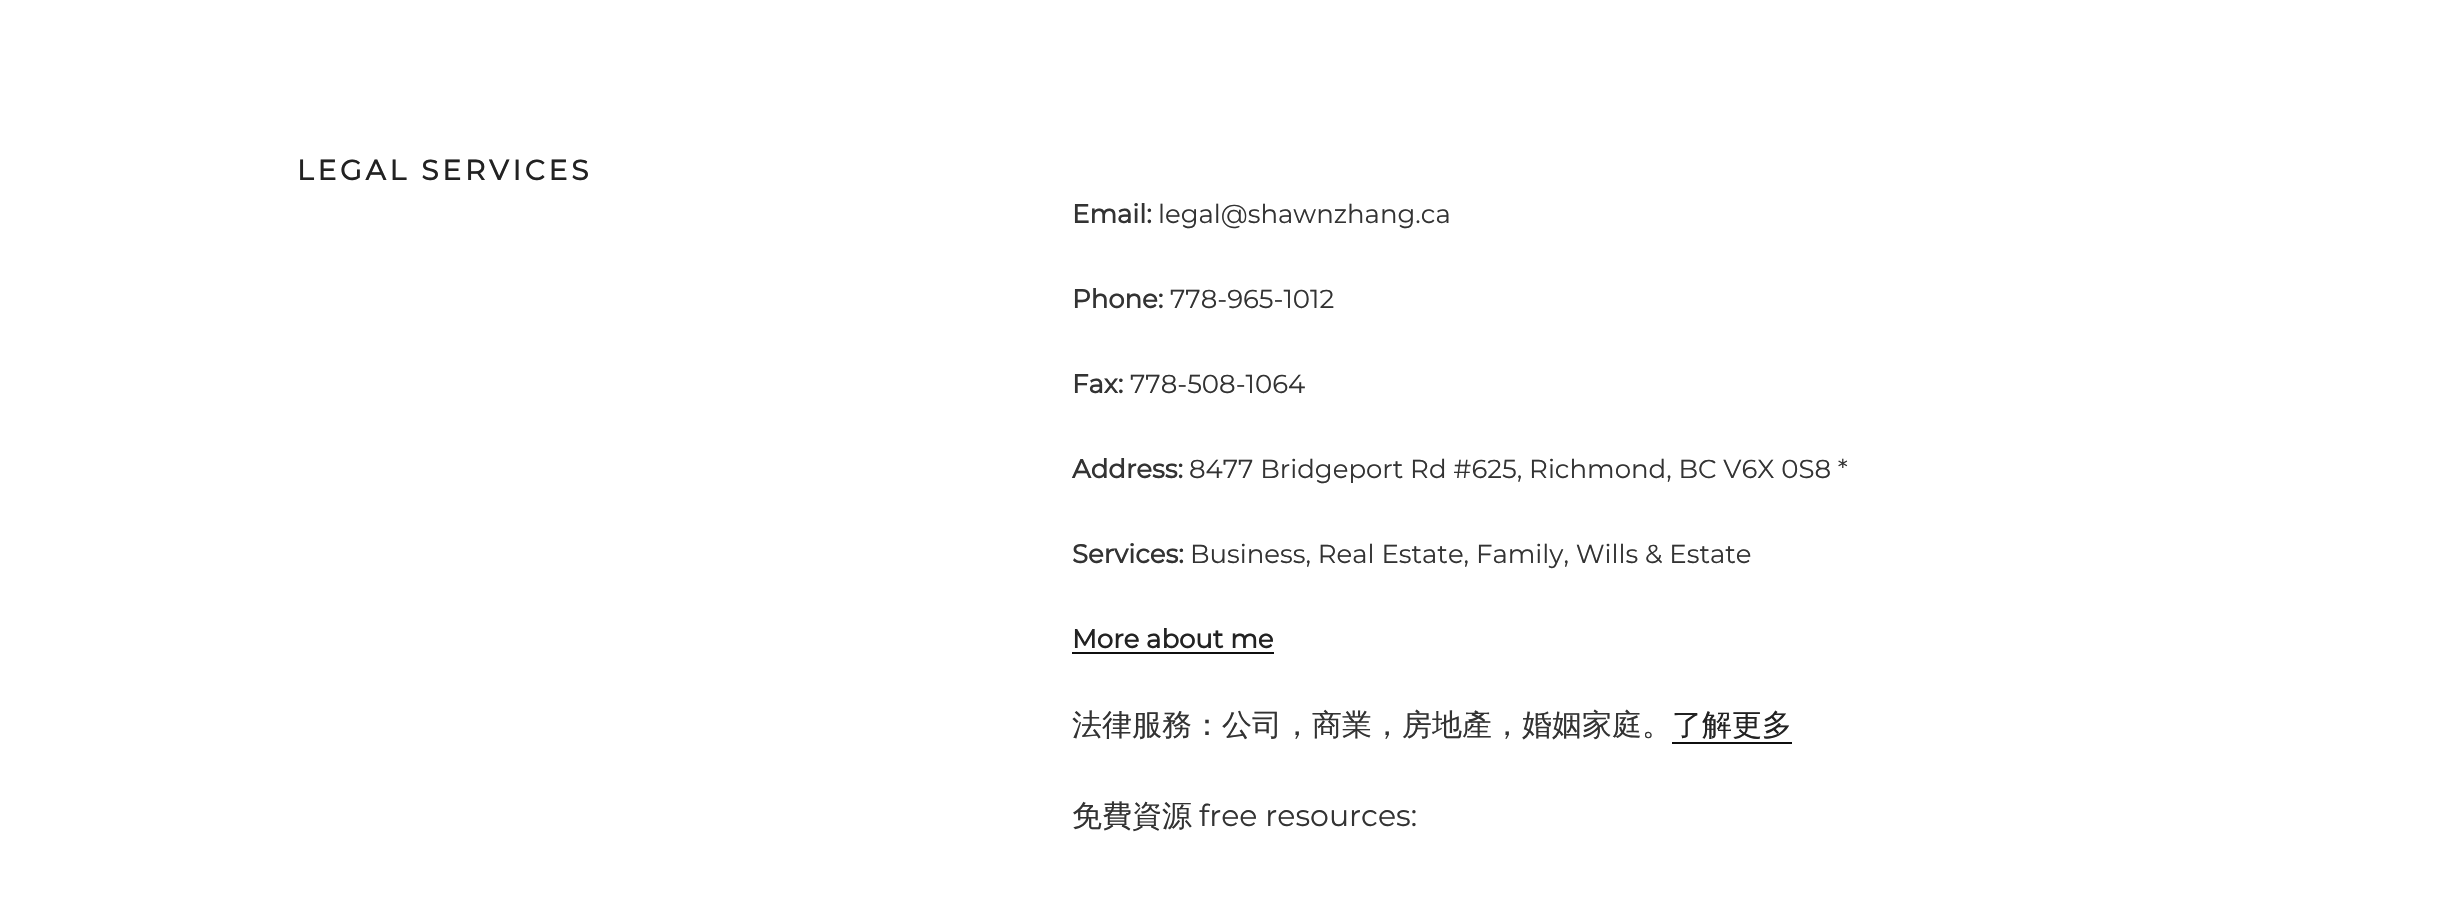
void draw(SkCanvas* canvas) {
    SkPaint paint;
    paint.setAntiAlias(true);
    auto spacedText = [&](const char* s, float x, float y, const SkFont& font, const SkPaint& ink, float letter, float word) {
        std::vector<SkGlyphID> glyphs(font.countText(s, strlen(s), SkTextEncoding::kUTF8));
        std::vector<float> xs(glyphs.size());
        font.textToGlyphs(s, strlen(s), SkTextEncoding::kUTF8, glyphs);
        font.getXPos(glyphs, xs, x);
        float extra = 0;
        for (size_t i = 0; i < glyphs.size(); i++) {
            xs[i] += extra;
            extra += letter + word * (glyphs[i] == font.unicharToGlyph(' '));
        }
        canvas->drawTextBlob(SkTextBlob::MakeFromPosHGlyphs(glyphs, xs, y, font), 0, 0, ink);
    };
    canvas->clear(0xFFFFFFFF);
    SkFont font1(fontMgr->matchFamilyStyle("Montserrat", SkFontStyle::Bold()), 28);
    font1.setSubpixel(true);
    paint.setColor(0xFF222222);
    spacedText("LEGAL SERVICES", 297, 180, font1, paint, 3.9f, 0);
    SkFont font2(fontMgr->matchFamilyStyle("Montserrat", SkFontStyle::Bold()), 26);
    font2.setSubpixel(true);
    paint.setColor(0xFF333333);
    canvas->drawString("Email:", 1072, 223, font2, paint);
    SkFont font3(fontMgr->matchFamilyStyle("Montserrat", SkFontStyle(100, SkFontStyle::kNormal_Width, SkFontStyle::kUpright_Slant)), 26);
    font3.setSubpixel(true);
    canvas->drawString("legal@shawnzhang.ca", 1158, 223, font3, paint);
    canvas->drawString("Phone:", 1072, 308, font2, paint);
    canvas->drawString("778-965-1012", 1170, 308, font3, paint);
    canvas->drawString("Fax:", 1072, 393, font2, paint);
    canvas->drawString("778-508-1064", 1130, 393, font3, paint);
    canvas->drawString("Address:", 1072, 478, font2, paint);
    canvas->drawString("8477 Bridgeport Rd #625, Richmond, BC V6X 0S8 *", 1189, 478, font3, paint);
    canvas->drawString("Services:", 1072, 563, font2, paint);
    canvas->drawString("Business, Real Estate, Family, Wills & Estate", 1190, 563, font3, paint);
    paint.setColor(0xFF222222);
    canvas->drawString("More about me", 1072, 648, font2, paint);
    paint.setColor(0xFF0F0F0F);
    canvas->drawRect(SkRect::MakeXYWH(1072, 652, 202, 2), paint);
    SkFont font4(fontMgr->matchFamilyStyle("WenQuanYi Zen Hei", SkFontStyle(500, SkFontStyle::kNormal_Width, SkFontStyle::kUpright_Slant)), 30);
    font4.setSubpixel(true);
    paint.setColor(0xFF333333);
    canvas->drawString("法律服務：公司，商業，房地產，婚姻家庭。", 1072, 735, font4, paint);
    paint.setColor(0xFF222222);
    canvas->drawString("了解更多", 1672, 735, font4, paint);
    paint.setColor(0xFF0F0F0F);
    canvas->drawRect(SkRect::MakeXYWH(1672, 742, 120, 2), paint);
    paint.setColor(0xFF333333);
    canvas->drawString("免費資源", 1072, 826, font4, paint);
    SkFont font5(fontMgr->matchFamilyStyle("Montserrat", SkFontStyle(100, SkFontStyle::kNormal_Width, SkFontStyle::kUpright_Slant)), 30);
    font5.setSubpixel(true);
    canvas->drawString("free resources:", 1199, 826, font5, paint);
}
